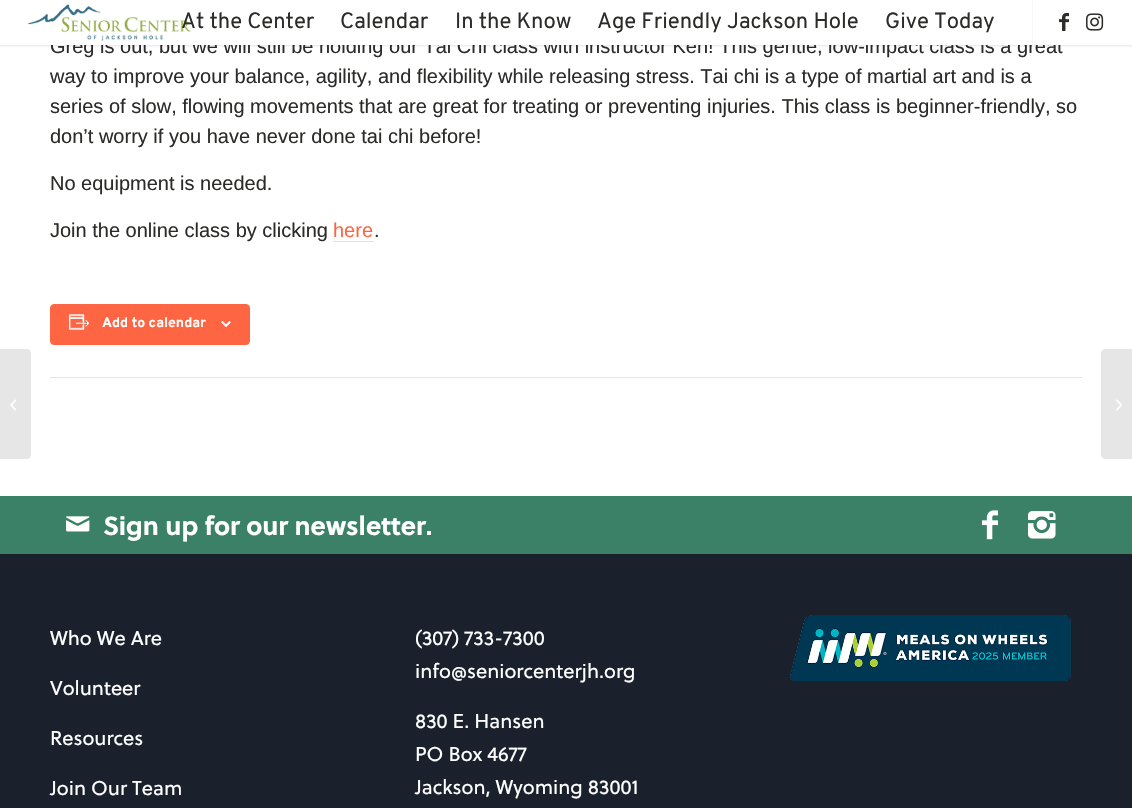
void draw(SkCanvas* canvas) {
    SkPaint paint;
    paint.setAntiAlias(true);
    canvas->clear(0xFFFFFFFF);
    paint.setColor(0x1A000000);
    paint.setMaskFilter(SkMaskFilter::MakeBlur(kNormal_SkBlurStyle, 1));
    canvas->drawRect(SkRect::MakeXYWH(-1, -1, 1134, 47), paint);
    paint.setMaskFilter(nullptr);
    SkFont font1(fontMgr->matchFamilyStyle("Liberation Sans", SkFontStyle::Normal()), 20);
    font1.setSubpixel(true);
    paint.setColor(0xFF2B2B29);
    canvas->drawString("Greg is out, but we will still be holding our Tai Chi class with instructor Ken! This gentle, low-impact class is a great", 50, 53, font1, paint);
    paint.setColor(0xFFFFFFFF);
    canvas->drawRect(SkRect::MakeXYWH(0, 0, 1132, 45), paint);
    canvas->drawImageRect(SkImages::DeferredFromEncodedData(SkData::MakeFromFileName("img1.png")), SkRect::MakeXYWH(27, 4, 165, 38), SkSamplingOptions());
    paint.setColor(0xFFFBF7F6);
    canvas->drawRect(SkRect::MakeXYWH(1032, 0, 1, 45), paint);
    SkFont font2(fontMgr->matchFamilyStyle("Overpass", SkFontStyle::Normal()), 22);
    font2.setSubpixel(true);
    paint.setColor(0xFF2B2B29);
    canvas->drawString("At the Center", 181, 28, font2, paint);
    canvas->drawString("Calendar", 340, 28, font2, paint);
    canvas->drawString("In the Know", 455, 28, font2, paint);
    canvas->drawString("Age Friendly Jackson Hole", 597, 28, font2, paint);
    canvas->drawString("Give Today", 885, 28, font2, paint);
    canvas->drawImageRect(SkImages::DeferredFromEncodedData(SkData::MakeFromFileName("img2.png")), SkRect::MakeXYWH(1059, 13, 10, 18), SkSamplingOptions());
    canvas->drawImageRect(SkImages::DeferredFromEncodedData(SkData::MakeFromFileName("img3.png")), SkRect::MakeXYWH(1086, 13, 18, 18), SkSamplingOptions());
    paint.setColor(0xFFE6E6E6);
    canvas->drawPath(SkPathBuilder().moveTo(0, 349).lineTo(27, 349).cubicTo(29, 349, 31, 351, 31, 353).lineTo(31, 455).cubicTo(31, 457, 29, 459, 27, 459).lineTo(0, 459).close().detach(), paint);
    canvas->drawImageRect(SkImages::DeferredFromEncodedData(SkData::MakeFromFileName("img4.png")), SkRect::MakeXYWH(10, 399, 6, 12), SkSamplingOptions());
    paint.setColor(0xFF2B2B29);
    canvas->drawString("way to improve your balance, agility, and flexibility while releasing stress. Tai chi is a type of martial art and is a", 50, 83, font1, paint);
    canvas->drawString("series of slow, flowing movements that are great for treating or preventing injuries. This class is beginner-friendly, so", 50, 113, font1, paint);
    canvas->drawString("don’t worry if you have never done tai chi before!", 50, 143, font1, paint);
    canvas->drawString("No equipment is needed.", 50, 190, font1, paint);
    canvas->drawString("Join the online class by clicking", 50, 237, font1, paint);
    paint.setColor(0xFFFE6543);
    canvas->drawString("here", 333, 237, font1, paint);
    paint.setColor(0xFFE1E1E1);
    canvas->drawRect(SkRect::MakeXYWH(333, 241, 41, 1), paint);
    paint.setColor(0xFF2B2B29);
    canvas->drawString(".", 374, 237, font1, paint);
    paint.setColor(0xFFFE6543);
    canvas->drawRoundRect(SkRect::MakeXYWH(50.5f, 304.5f, 199, 40), 3.5f, 3.5f, paint);
    paint.setStyle(SkPaint::kStroke_Style);
    paint.setStrokeWidth(1);
    canvas->drawRoundRect(SkRect::MakeXYWH(50.5f, 304.5f, 199, 40), 3.5f, 3.5f, paint);
    canvas->drawImageRect(SkImages::DeferredFromEncodedData(SkData::MakeFromFileName("img5.png")), SkRect::MakeXYWH(69, 314, 21, 16), SkSamplingOptions());
    SkFont font3(fontMgr->matchFamilyStyle("Overpass", SkFontStyle::Bold()), 14);
    font3.setSubpixel(true);
    paint.setStyle(SkPaint::kFill_Style);
    paint.setColor(0xFFFFFFFF);
    canvas->drawString("Add to calendar", 102, 327, font3, paint);
    canvas->drawImageRect(SkImages::DeferredFromEncodedData(SkData::MakeFromFileName("img6.png")), SkRect::MakeXYWH(221, 321, 10, 6), SkSamplingOptions());
    paint.setColor(0xFFE5E5E5);
    canvas->drawRect(SkRect::MakeXYWH(50, 377, 1032, 1), paint);
    paint.setColor(0xFF3A8168);
    canvas->drawRect(SkRect::MakeXYWH(0, 496, 1132, 58), paint);
    canvas->drawImageRect(SkImages::DeferredFromEncodedData(SkData::MakeFromFileName("img7.png")), SkRect::MakeXYWH(66, 516, 24, 16), SkSamplingOptions());
    SkFont font4(fontMgr->matchFamilyStyle("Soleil", SkFontStyle::Bold()), 26);
    font4.setSubpixel(true);
    paint.setColor(0xFFFFFFFF);
    canvas->drawString("Sign up for our newsletter.", 103, 535, font4, paint);
    canvas->drawImageRect(SkImages::DeferredFromEncodedData(SkData::MakeFromFileName("img8.png")), SkRect::MakeXYWH(982, 510, 16, 30), SkSamplingOptions());
    canvas->drawImageRect(SkImages::DeferredFromEncodedData(SkData::MakeFromFileName("img9.png")), SkRect::MakeXYWH(1028, 511, 28, 28), SkSamplingOptions());
    paint.setColor(0xFF1A202C);
    canvas->drawRect(SkRect::MakeXYWH(0, 554, 1132, 254), paint);
    SkFont font5(fontMgr->matchFamilyStyle("Soleil", SkFontStyle::Normal()), 20);
    font5.setSubpixel(true);
    paint.setColor(0xFFFFFFFF);
    canvas->drawString("Who We Are", 50, 645, font5, paint);
    canvas->drawString("Volunteer", 50, 695, font5, paint);
    canvas->drawString("Resources", 50, 745, font5, paint);
    canvas->drawString("Join Our Team", 50, 795, font5, paint);
    canvas->drawString("(307) 733-7300", 415, 645, font5, paint);
    canvas->drawString("info@seniorcenterjh.org", 415, 678, font5, paint);
    canvas->drawString("830 E. Hansen", 415, 728, font5, paint);
    canvas->drawString("PO Box 4677", 415, 761, font5, paint);
    canvas->drawString("Jackson, Wyoming 83001", 415, 794, font5, paint);
    canvas->drawImageRect(SkImages::DeferredFromEncodedData(SkData::MakeFromFileName("img10.png")), SkRect::MakeXYWH(789, 615, 282, 67), SkSamplingOptions());
    paint.setColor(0xFFE6E6E6);
    canvas->drawPath(SkPathBuilder().moveTo(1105, 349).lineTo(1132, 349).lineTo(1132, 459).lineTo(1105, 459).cubicTo(1103, 459, 1101, 457, 1101, 455).lineTo(1101, 353).cubicTo(1101, 351, 1103, 349, 1105, 349).close().detach(), paint);
    canvas->drawImageRect(SkImages::DeferredFromEncodedData(SkData::MakeFromFileName("img11.png")), SkRect::MakeXYWH(1116, 399, 6, 12), SkSamplingOptions());
}
